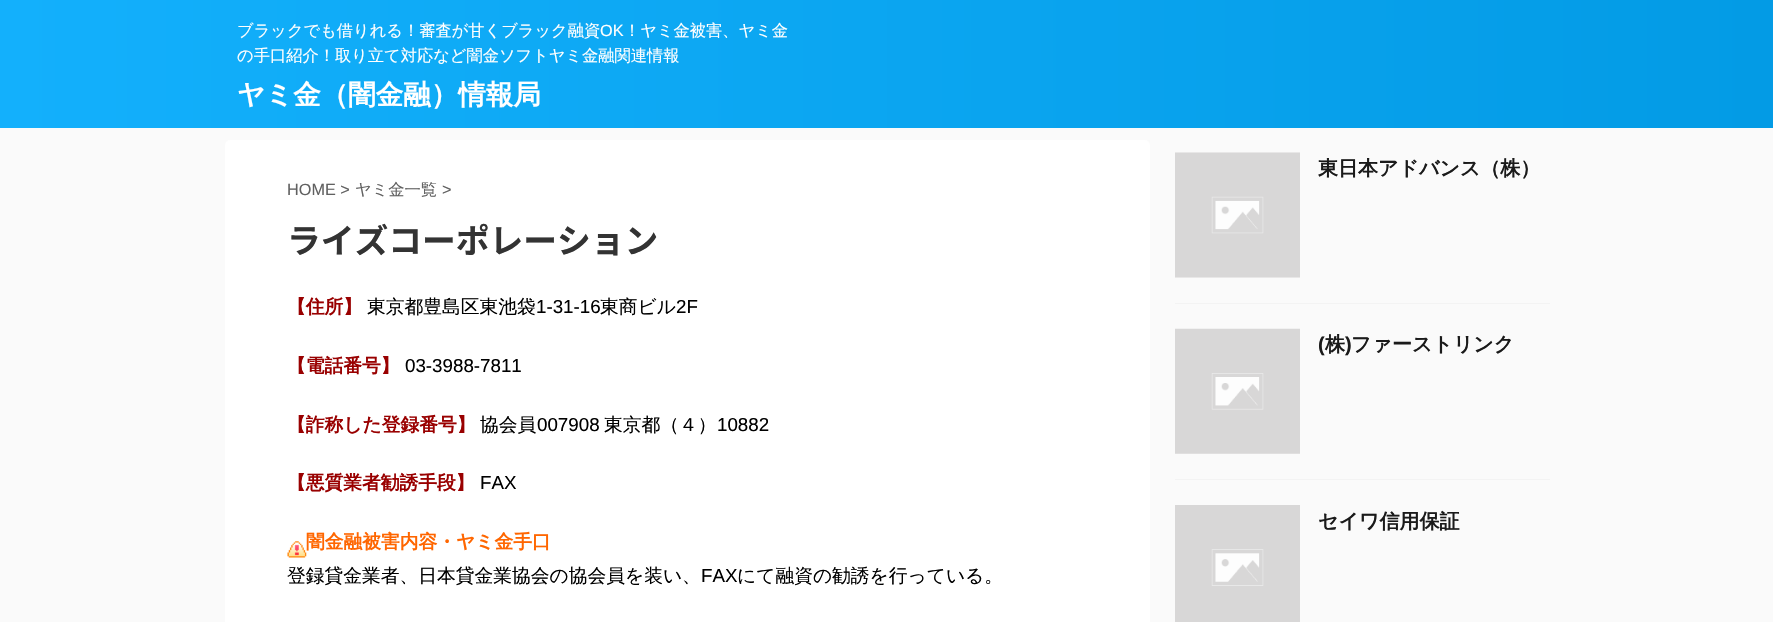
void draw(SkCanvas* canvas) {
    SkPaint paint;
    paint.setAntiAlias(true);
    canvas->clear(0xFFFAFAFA);
    {
        const SkColor colors[] = {0xFF039BE5, 0xFF13B0FC};
        const float stops[] = {0, 1};
        const SkPoint ends[] = {{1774, 64}, {0, 64}};
        paint.setShader(SkGradientShader::MakeLinear(ends, colors, stops, 2, SkTileMode::kClamp));
        paint.setAlpha(255);
    }
    canvas->drawRect(SkRect::MakeXYWH(0, 0, 1773, 128), paint);
    SkFont font1(fontMgr->matchFamilyStyle("WenQuanYi Zen Hei", SkFontStyle(500, SkFontStyle::kNormal_Width, SkFontStyle::kUpright_Slant)), 16.25f);
    font1.setSubpixel(true);
    paint.setShader(nullptr);
    paint.setColor(0xFFFFFFFF);
    canvas->drawString("ブラックでも借りれる！審査が甘くブラック融資", 237, 36, font1, paint);
    SkFont font2(fontMgr->matchFamilyStyle("Liberation Sans", SkFontStyle::Normal()), 16.25f);
    font2.setSubpixel(true);
    canvas->drawString("OK", 600, 36, font2, paint);
    canvas->drawString("！ヤミ金被害、ヤミ金", 624, 36, font1, paint);
    canvas->drawString("の手口紹介！取り立て対応など闇金ソフトヤミ金融関連情報", 237, 61, font1, paint);
    SkFont font3(fontMgr->matchFamilyStyle("WenQuanYi Zen Hei", SkFontStyle::Bold()), 27.5f);
    font3.setSubpixel(true);
    canvas->drawString("ヤミ金（闇金融）情報局", 237, 104, font3, paint);
    canvas->drawRoundRect(SkRect::MakeXYWH(225, 140, 925, 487), 5, 5, paint);
    paint.setColor(0xFF616161);
    canvas->drawString("HOME >", 287, 195, font2, paint);
    canvas->drawString("ヤミ金一覧", 355, 195, font1, paint);
    canvas->drawString(">", 442, 195, font2, paint);
    SkFont font4(fontMgr->matchFamilyStyle("Noto Sans JP", SkFontStyle::Bold()), 33.75f);
    font4.setSubpixel(true);
    paint.setColor(0xFF333333);
    canvas->drawString("ライズコーポレーション", 287, 253, font4, paint);
    SkFont font5(fontMgr->matchFamilyStyle("WenQuanYi Zen Hei", SkFontStyle::Bold()), 18.75f);
    font5.setSubpixel(true);
    paint.setColor(0xFF990000);
    canvas->drawString("【住所】", 287, 313, font5, paint);
    SkFont font6(fontMgr->matchFamilyStyle("WenQuanYi Zen Hei", SkFontStyle(500, SkFontStyle::kNormal_Width, SkFontStyle::kUpright_Slant)), 18.75f);
    font6.setSubpixel(true);
    paint.setColor(0xFF000000);
    canvas->drawString("東京都豊島区東池袋", 367, 313, font6, paint);
    SkFont font7(fontMgr->matchFamilyStyle("Liberation Sans", SkFontStyle::Normal()), 18.75f);
    font7.setSubpixel(true);
    canvas->drawString("1-31-16", 536, 313, font7, paint);
    canvas->drawString("東商ビル", 600, 313, font6, paint);
    canvas->drawString("2F", 676, 313, font7, paint);
    paint.setColor(0xFF990000);
    canvas->drawString("【電話番号】", 287, 372, font5, paint);
    paint.setColor(0xFF000000);
    canvas->drawString("03-3988-7811", 405, 372, font7, paint);
    paint.setColor(0xFF990000);
    canvas->drawString("【詐称した登録番号】", 287, 431, font5, paint);
    paint.setColor(0xFF000000);
    canvas->drawString("協会員", 480, 431, font6, paint);
    canvas->drawString("007908", 537, 431, font7, paint);
    canvas->drawString("東京都（４）", 604, 431, font6, paint);
    canvas->drawString("10882", 717, 431, font7, paint);
    paint.setColor(0xFF990000);
    canvas->drawString("【悪質業者勧誘手段】", 287, 489, font5, paint);
    paint.setColor(0xFF000000);
    canvas->drawString("FAX", 480, 489, font7, paint);
    canvas->drawImageRect(SkImages::DeferredFromEncodedData(SkData::MakeFromFileName("img1.png")), SkRect::MakeXYWH(287, 541, 20, 17), SkSamplingOptions());
    paint.setColor(0xFFFF6600);
    canvas->drawString("闇金融被害内容・ヤミ金手口", 306, 548, font5, paint);
    paint.setColor(0xFF000000);
    canvas->drawString("登録貸金業者、日本貸金業協会の協会員を装い、", 287, 582, font6, paint);
    canvas->drawString("FAX", 701, 582, font7, paint);
    canvas->drawString("にて融資の勧誘を行っている。", 737, 582, font6, paint);
    paint.setColor(0xFFF3F3F3);
    canvas->drawRect(SkRect::MakeXYWH(1175, 303, 375, 1), paint);
    canvas->drawImageRect(SkImages::DeferredFromEncodedData(SkData::MakeFromFileName("img2.png")), SkRect::MakeXYWH(1175, 152, 125, 126), SkSamplingOptions());
    SkFont font8(fontMgr->matchFamilyStyle("WenQuanYi Zen Hei", SkFontStyle::Bold()), 20);
    font8.setSubpixel(true);
    paint.setColor(0xFF1A1A1A);
    canvas->drawString("東日本アドバンス（株）", 1318, 175, font8, paint);
    paint.setColor(0xFFF3F3F3);
    canvas->drawRect(SkRect::MakeXYWH(1175, 479, 375, 1), paint);
    canvas->drawImageRect(SkImages::DeferredFromEncodedData(SkData::MakeFromFileName("img3.png")), SkRect::MakeXYWH(1175, 328, 125, 126), SkSamplingOptions());
    SkFont font9(fontMgr->matchFamilyStyle("Liberation Sans", SkFontStyle::Bold()), 20);
    font9.setSubpixel(true);
    paint.setColor(0xFF1A1A1A);
    canvas->drawString("(", 1318, 351, font9, paint);
    canvas->drawString("株", 1325, 351, font8, paint);
    canvas->drawString(")", 1345, 351, font9, paint);
    canvas->drawString("ファーストリンク", 1351, 351, font8, paint);
    canvas->drawImageRect(SkImages::DeferredFromEncodedData(SkData::MakeFromFileName("img4.png")), SkRect::MakeXYWH(1175, 505, 125, 117), SkSamplingOptions());
    canvas->drawString("セイワ信用保証", 1318, 528, font8, paint);
}
